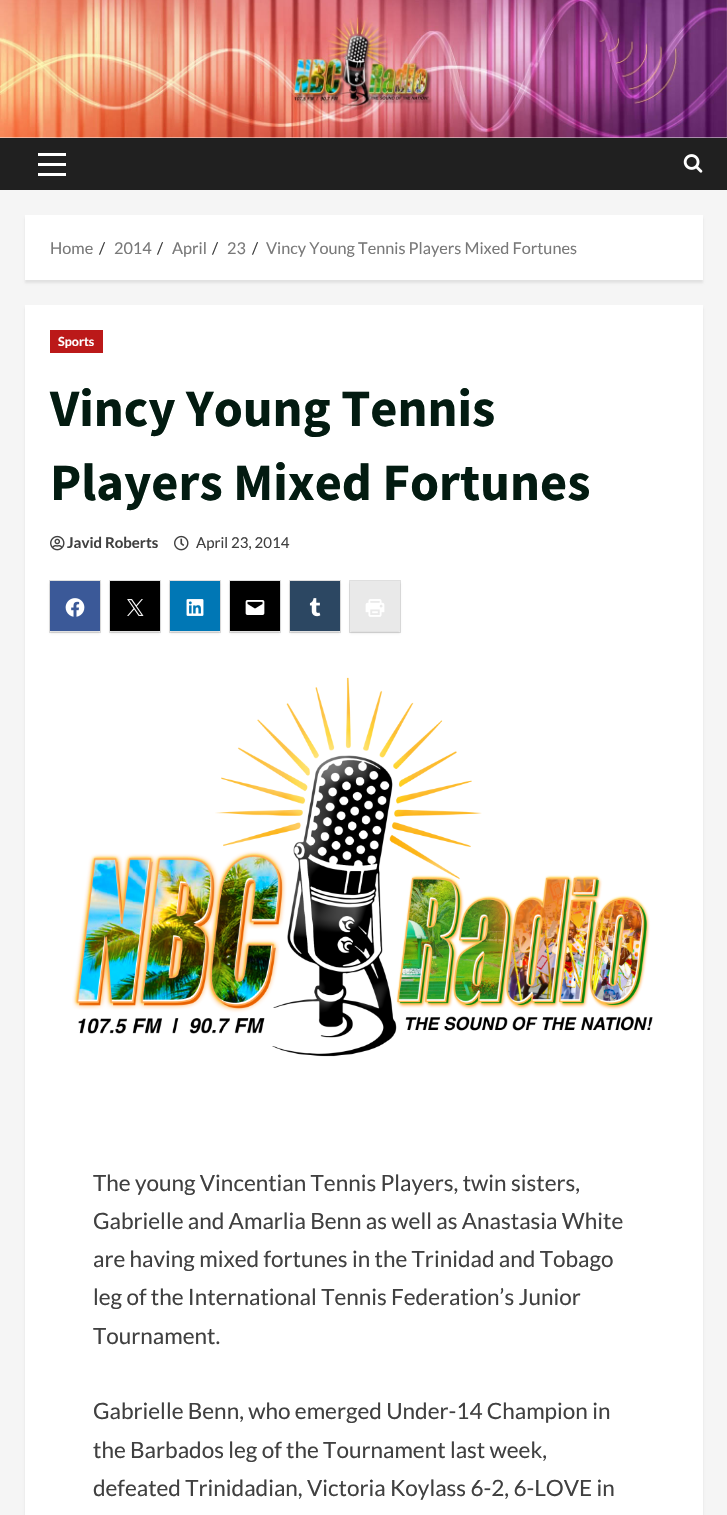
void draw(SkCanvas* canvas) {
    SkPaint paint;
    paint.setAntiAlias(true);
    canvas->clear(0xFFF5F5F5);
    canvas->drawImageRect(SkImages::DeferredFromEncodedData(SkData::MakeFromFileName("img1.png")), SkRect::MakeXYWH(0, 0, 727, 138), SkSamplingOptions());
    paint.setColor(0xFF202020);
    canvas->drawRect(SkRect::MakeXYWH(0, 138, 727, 52), paint);
    paint.setColor(0xFFFFFFFF);
    canvas->drawRect(SkRect::MakeXYWH(38, 163, 28, 3), paint);
    canvas->drawRect(SkRect::MakeXYWH(38, 153, 28, 3), paint);
    canvas->drawRect(SkRect::MakeXYWH(38, 173, 28, 3), paint);
    canvas->drawImageRect(SkImages::DeferredFromEncodedData(SkData::MakeFromFileName("img2.png")), SkRect::MakeXYWH(683, 154, 20, 19), SkSamplingOptions());
    paint.setColor(0x14000000);
    paint.setMaskFilter(SkMaskFilter::MakeBlur(kNormal_SkBlurStyle, 1));
    canvas->drawRect(SkRect::MakeXYWH(25, 218, 678, 65), paint);
    paint.setMaskFilter(nullptr);
    paint.setColor(0xFFFFFFFF);
    canvas->drawRect(SkRect::MakeXYWH(25, 215, 678, 65), paint);
    SkFont font1(fontMgr->matchFamilyStyle("Lato", SkFontStyle::Normal()), 16.25f);
    font1.setSubpixel(true);
    paint.setColor(0xFF797979);
    canvas->drawString("Home", 50, 254, font1, paint);
    paint.setColor(0xFF404040);
    canvas->drawString("/", 99, 254, font1, paint);
    paint.setColor(0xFF797979);
    canvas->drawString("2014", 114, 254, font1, paint);
    paint.setColor(0xFF404040);
    canvas->drawString("/", 157, 254, font1, paint);
    paint.setColor(0xFF797979);
    canvas->drawString("April", 172, 254, font1, paint);
    paint.setColor(0xFF404040);
    canvas->drawString("/", 212, 254, font1, paint);
    paint.setColor(0xFF797979);
    canvas->drawString("23", 227, 254, font1, paint);
    paint.setColor(0xFF404040);
    canvas->drawString("/", 252, 254, font1, paint);
    paint.setColor(0xFF797979);
    canvas->drawString("Vincy Young Tennis Players Mixed Fortunes", 266, 254, font1, paint);
    paint.setColor(0x14000000);
    paint.setMaskFilter(SkMaskFilter::MakeBlur(kNormal_SkBlurStyle, 1));
    canvas->drawRect(SkRect::MakeXYWH(25, 308, 678, 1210), paint);
    paint.setMaskFilter(nullptr);
    paint.setColor(0xFFFFFFFF);
    canvas->drawRect(SkRect::MakeXYWH(25, 305, 678, 1210), paint);
    paint.setColor(0xFFBB1919);
    canvas->drawRect(SkRect::MakeXYWH(50, 330, 53, 23), paint);
    SkFont font2(fontMgr->matchFamilyStyle("Lato", SkFontStyle::Bold()), 12.5f);
    font2.setSubpixel(true);
    paint.setColor(0xFFFFFFFF);
    canvas->drawString("Sports", 58, 346, font2, paint);
    SkFont font3(fontMgr->matchFamilyStyle("Source Sans Pro", SkFontStyle::Bold()), 52.5f);
    font3.setSubpixel(true);
    paint.setColor(0xFF031B11);
    canvas->drawString("Vincy Young Tennis", 50, 426, font3, paint);
    canvas->drawString("Players Mixed Fortunes", 50, 500, font3, paint);
    canvas->drawImageRect(SkImages::DeferredFromEncodedData(SkData::MakeFromFileName("img3.png")), SkRect::MakeXYWH(50, 535, 15, 16), SkSamplingOptions());
    SkFont font4(fontMgr->matchFamilyStyle("Lato", SkFontStyle::Bold()), 15);
    font4.setSubpixel(true);
    paint.setColor(0xFF404040);
    canvas->drawString("Javid Roberts", 67, 548, font4, paint);
    canvas->drawImageRect(SkImages::DeferredFromEncodedData(SkData::MakeFromFileName("img4.png")), SkRect::MakeXYWH(174, 535, 15, 16), SkSamplingOptions());
    SkFont font5(fontMgr->matchFamilyStyle("Lato", SkFontStyle::Normal()), 15);
    font5.setSubpixel(true);
    canvas->drawString("April 23, 2014", 196, 548, font5, paint);
    paint.setStyle(SkPaint::kStroke_Style);
    paint.setStrokeWidth(1);
    paint.setColor(0xFFE0E0E0);
    canvas->drawRect(SkRect::MakeXYWH(49.5f, 580.5f, 51, 52), paint);
    paint.setStyle(SkPaint::kFill_Style);
    paint.setColor(0x1F000000);
    paint.setMaskFilter(SkMaskFilter::MakeBlur(kNormal_SkBlurStyle, 1));
    canvas->drawRect(SkRect::MakeXYWH(50, 583, 50, 50), paint);
    paint.setMaskFilter(nullptr);
    paint.setColor(0xFF3B5998);
    canvas->drawRect(SkRect::MakeXYWH(50, 581, 50, 50), paint);
    canvas->drawImageRect(SkImages::DeferredFromEncodedData(SkData::MakeFromFileName("img5.png")), SkRect::MakeXYWH(65, 598, 20, 19), SkSamplingOptions());
    paint.setStyle(SkPaint::kStroke_Style);
    paint.setColor(0xFFE0E0E0);
    canvas->drawRect(SkRect::MakeXYWH(109.5f, 580.5f, 51, 52), paint);
    paint.setStyle(SkPaint::kFill_Style);
    paint.setColor(0x1F000000);
    paint.setMaskFilter(SkMaskFilter::MakeBlur(kNormal_SkBlurStyle, 1));
    canvas->drawRect(SkRect::MakeXYWH(110, 583, 50, 50), paint);
    paint.setMaskFilter(nullptr);
    paint.setColor(0xFF000000);
    canvas->drawRect(SkRect::MakeXYWH(110, 581, 50, 50), paint);
    canvas->drawImageRect(SkImages::DeferredFromEncodedData(SkData::MakeFromFileName("img6.png")), SkRect::MakeXYWH(127, 599, 17, 17), SkSamplingOptions());
    paint.setStyle(SkPaint::kStroke_Style);
    paint.setColor(0xFFE0E0E0);
    canvas->drawRect(SkRect::MakeXYWH(169.5f, 580.5f, 51, 52), paint);
    paint.setStyle(SkPaint::kFill_Style);
    paint.setColor(0x1F000000);
    paint.setMaskFilter(SkMaskFilter::MakeBlur(kNormal_SkBlurStyle, 1));
    canvas->drawRect(SkRect::MakeXYWH(170, 583, 50, 50), paint);
    paint.setMaskFilter(nullptr);
    paint.setColor(0xFF0077B5);
    canvas->drawRect(SkRect::MakeXYWH(170, 581, 50, 50), paint);
    canvas->drawImageRect(SkImages::DeferredFromEncodedData(SkData::MakeFromFileName("img7.png")), SkRect::MakeXYWH(186, 599, 18, 17), SkSamplingOptions());
    paint.setStyle(SkPaint::kStroke_Style);
    paint.setColor(0xFFE0E0E0);
    canvas->drawRect(SkRect::MakeXYWH(229.5f, 580.5f, 51, 52), paint);
    paint.setStyle(SkPaint::kFill_Style);
    paint.setColor(0x1F000000);
    paint.setMaskFilter(SkMaskFilter::MakeBlur(kNormal_SkBlurStyle, 1));
    canvas->drawRect(SkRect::MakeXYWH(230, 583, 50, 50), paint);
    paint.setMaskFilter(nullptr);
    paint.setColor(0xFF000000);
    canvas->drawRect(SkRect::MakeXYWH(230, 581, 50, 50), paint);
    canvas->drawImageRect(SkImages::DeferredFromEncodedData(SkData::MakeFromFileName("img8.png")), SkRect::MakeXYWH(245, 600, 20, 15), SkSamplingOptions());
    paint.setStyle(SkPaint::kStroke_Style);
    paint.setColor(0xFFE0E0E0);
    canvas->drawRect(SkRect::MakeXYWH(289.5f, 580.5f, 51, 52), paint);
    paint.setStyle(SkPaint::kFill_Style);
    paint.setColor(0x1F000000);
    paint.setMaskFilter(SkMaskFilter::MakeBlur(kNormal_SkBlurStyle, 1));
    canvas->drawRect(SkRect::MakeXYWH(290, 583, 50, 50), paint);
    paint.setMaskFilter(nullptr);
    paint.setColor(0xFF2C4762);
    canvas->drawRect(SkRect::MakeXYWH(290, 581, 50, 50), paint);
    canvas->drawImageRect(SkImages::DeferredFromEncodedData(SkData::MakeFromFileName("img9.png")), SkRect::MakeXYWH(309, 598, 12, 19), SkSamplingOptions());
    paint.setStyle(SkPaint::kStroke_Style);
    paint.setColor(0xFFE0E0E0);
    canvas->drawRect(SkRect::MakeXYWH(349.5f, 580.5f, 51, 52), paint);
    paint.setStyle(SkPaint::kFill_Style);
    paint.setColor(0x1F000000);
    paint.setMaskFilter(SkMaskFilter::MakeBlur(kNormal_SkBlurStyle, 1));
    canvas->drawRect(SkRect::MakeXYWH(350, 583, 50, 50), paint);
    paint.setMaskFilter(nullptr);
    paint.setColor(0xFFE9E9E9);
    canvas->drawRect(SkRect::MakeXYWH(350, 581, 50, 50), paint);
    canvas->drawImageRect(SkImages::DeferredFromEncodedData(SkData::MakeFromFileName("img10.png")), SkRect::MakeXYWH(365, 599, 20, 18), SkSamplingOptions());
    canvas->drawImageRect(SkImages::DeferredFromEncodedData(SkData::MakeFromFileName("img11.png")), SkRect::MakeXYWH(72, 677, 581, 380), SkSamplingOptions());
    SkFont font6(fontMgr->matchFamilyStyle("Lato", SkFontStyle::Normal()), 22.5f);
    font6.setSubpixel(true);
    paint.setColor(0xFF404040);
    canvas->drawString("The young Vincentian Tennis Players, twin sisters,", 93, 1191, font6, paint);
    canvas->drawString("Gabrielle and Amarlia Benn as well as Anastasia White", 93, 1229, font6, paint);
    canvas->drawString("are having mixed fortunes in the Trinidad and Tobago", 93, 1267, font6, paint);
    canvas->drawString("leg of the International Tennis Federation’s Junior", 93, 1305, font6, paint);
    canvas->drawString("Tournament.", 93, 1344, font6, paint);
    canvas->drawString("Gabrielle Benn, who emerged Under-14 Champion in", 93, 1419, font6, paint);
    canvas->drawString("the Barbados leg of the Tournament last week,", 93, 1458, font6, paint);
    canvas->drawString("defeated Trinidadian, Victoria Koylass 6-2, 6-LOVE in", 93, 1496, font6, paint);
}
